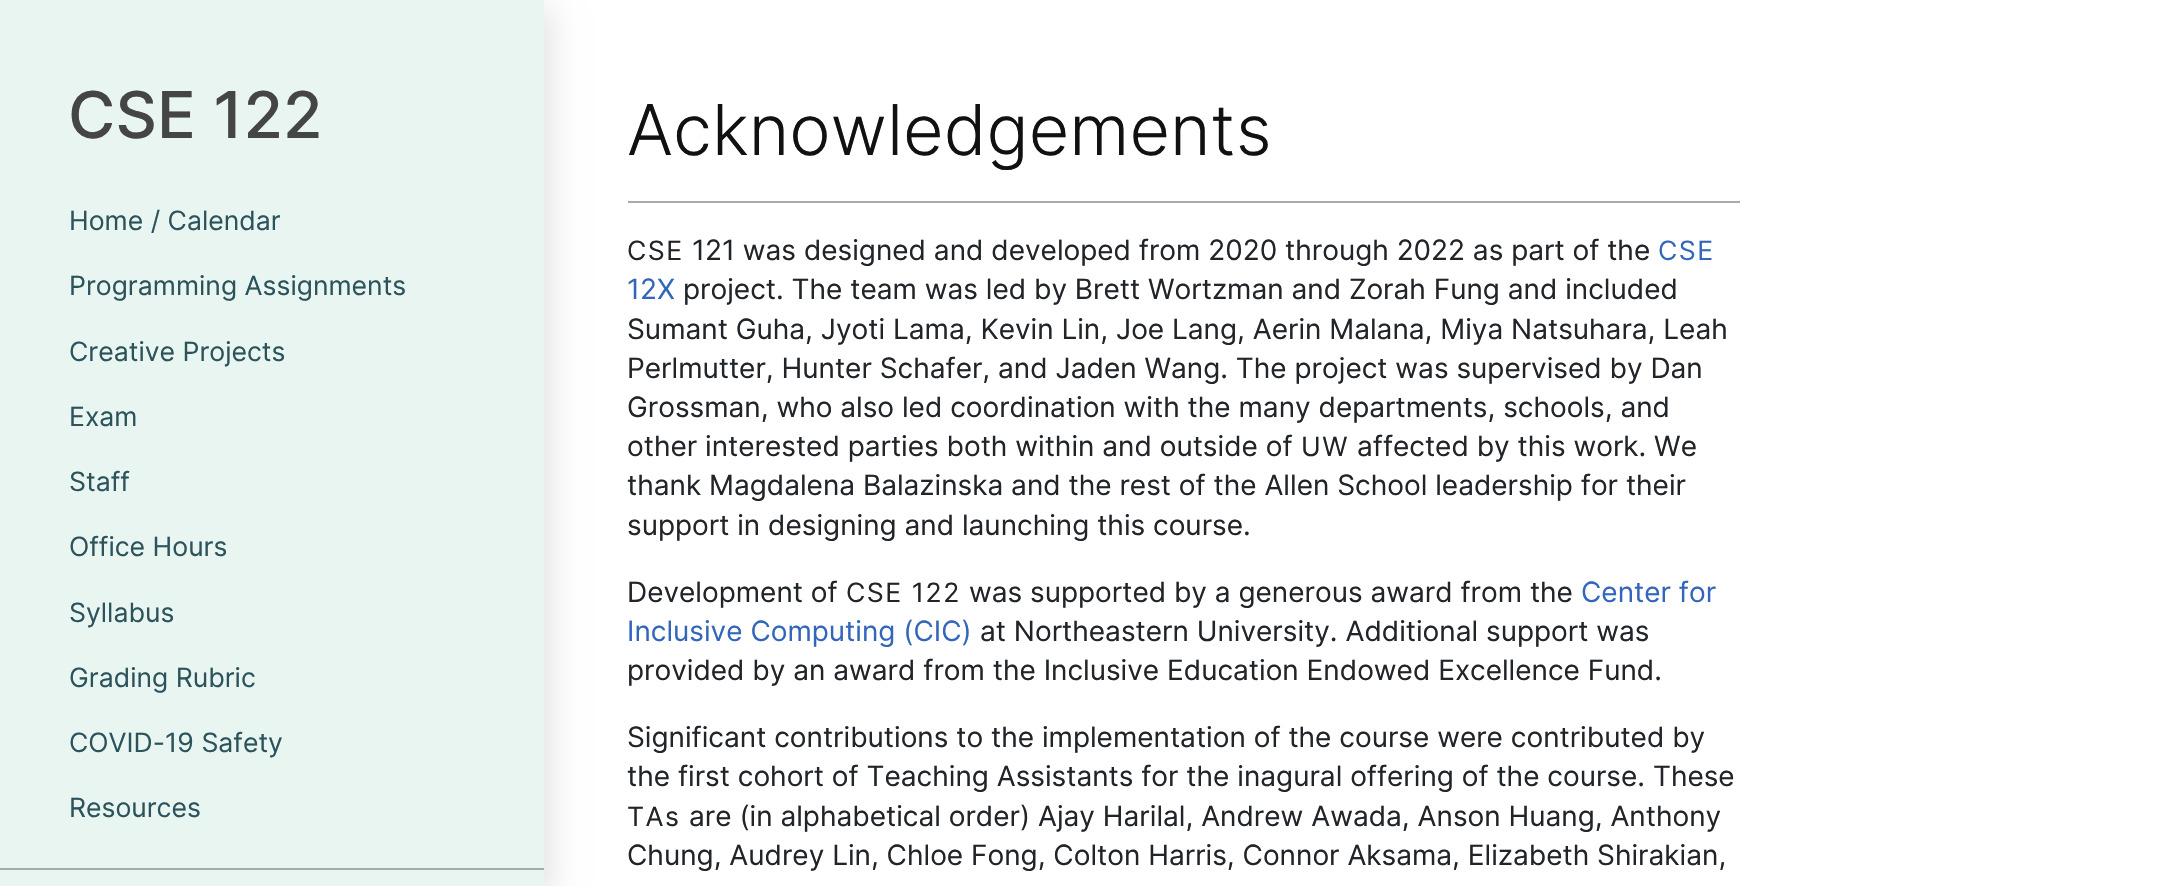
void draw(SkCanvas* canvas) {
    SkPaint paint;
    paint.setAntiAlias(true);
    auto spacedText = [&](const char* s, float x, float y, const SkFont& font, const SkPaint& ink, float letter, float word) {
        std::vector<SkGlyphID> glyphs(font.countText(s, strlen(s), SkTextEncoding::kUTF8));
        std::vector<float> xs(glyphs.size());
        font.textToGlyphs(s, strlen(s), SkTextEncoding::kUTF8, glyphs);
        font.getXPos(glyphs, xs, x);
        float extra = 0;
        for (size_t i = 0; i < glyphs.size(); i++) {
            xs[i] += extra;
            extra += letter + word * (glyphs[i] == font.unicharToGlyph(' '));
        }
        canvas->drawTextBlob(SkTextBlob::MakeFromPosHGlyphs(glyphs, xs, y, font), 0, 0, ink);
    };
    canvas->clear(0xFFFFFFFF);
    paint.setColor(0x1A000000);
    paint.setMaskFilter(SkMaskFilter::MakeBlur(kNormal_SkBlurStyle, 14));
    canvas->drawRect(SkRect::MakeXYWH(9, 9, 544, 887), paint);
    paint.setMaskFilter(nullptr);
    paint.setColor(0xFFE8F5F0);
    canvas->drawRect(SkRect::MakeXYWH(0, 0, 544, 886), paint);
    SkFont font1(fontMgr->matchFamilyStyle("Inter", SkFontStyle(500, SkFontStyle::kNormal_Width, SkFontStyle::kUpright_Slant)), 64.5f);
    font1.setSubpixel(true);
    paint.setColor(0xFF454545);
    canvas->drawString("CSE 122", 68, 138, font1, paint);
    SkFont font2(fontMgr->matchFamilyStyle("Inter", SkFontStyle::Normal()), 26.6f);
    font2.setSubpixel(true);
    paint.setColor(0xFF2C535B);
    canvas->drawString("Home / Calendar", 69, 230, font2, paint);
    canvas->drawString("Programming Assignments", 69, 295, font2, paint);
    canvas->drawString("Creative Projects", 69, 361, font2, paint);
    canvas->drawString("Exam", 69, 426, font2, paint);
    canvas->drawString("Staff", 69, 491, font2, paint);
    canvas->drawString("Office Hours", 69, 556, font2, paint);
    canvas->drawString("Syllabus", 69, 622, font2, paint);
    canvas->drawString("Grading Rubric", 69, 687, font2, paint);
    canvas->drawString("COVID-19 Safety", 69, 752, font2, paint);
    canvas->drawString("Resources", 69, 817, font2, paint);
    paint.setColor(0xFFAAAAAA);
    canvas->drawRect(SkRect::MakeXYWH(0, 868, 544, 2), paint);
    SkFont font3(fontMgr->matchFamilyStyle("Inter", SkFontStyle(300, SkFontStyle::kNormal_Width, SkFontStyle::kUpright_Slant)), 70);
    font3.setSubpixel(true);
    paint.setColor(0xFF111111);
    canvas->drawString("Acknowledgements", 627, 155, font3, paint);
    paint.setColor(0xFFAAAAAA);
    canvas->drawRect(SkRect::MakeXYWH(628, 201, 1112, 2), paint);
    paint.setColor(0xFF212529);
    spacedText("CSE", 627, 260, font2, paint, 1.5f, 0);
    SkFont font4(fontMgr->matchFamilyStyle("Inter", SkFontStyle::Normal()), 28);
    font4.setSubpixel(true);
    canvas->drawString("121 was designed and developed from 2020 through 2022 as part of the", 692, 260, font4, paint);
    paint.setColor(0xFF3366BB);
    spacedText("CSE", 1658, 260, font2, paint, 1.5f, 0);
    canvas->drawString("12X", 627, 299, font4, paint);
    paint.setColor(0xFF212529);
    canvas->drawString("project. The team was led by Brett Wortzman and Zorah Fung and included", 683, 299, font4, paint);
    canvas->drawString("Sumant Guha, Jyoti Lama, Kevin Lin, Joe Lang, Aerin Malana, Miya Natsuhara, Leah", 627, 339, font4, paint);
    canvas->drawString("Perlmutter, Hunter Schafer, and Jaden Wang. The project was supervised by Dan", 627, 378, font4, paint);
    canvas->drawString("Grossman, who also led coordination with the many departments, schools, and", 627, 417, font4, paint);
    canvas->drawString("other interested parties both within and outside of", 627, 456, font4, paint);
    spacedText("UW", 1301, 456, font2, paint, 1.5f, 0);
    canvas->drawString("affected by this work. We", 1357, 456, font4, paint);
    canvas->drawString("thank Magdalena Balazinska and the rest of the Allen School leadership for their", 627, 495, font4, paint);
    canvas->drawString("support in designing and launching this course.", 627, 535, font4, paint);
    canvas->drawString("Development of", 627, 602, font4, paint);
    spacedText("CSE 122", 846, 602, font2, paint, 1.5f, 0);
    canvas->drawString("was supported by a generous award from the", 969, 602, font4, paint);
    paint.setColor(0xFF3366BB);
    canvas->drawString("Center for", 1581, 602, font4, paint);
    canvas->drawString("Inclusive Computing (CIC)", 627, 641, font4, paint);
    paint.setColor(0xFF212529);
    canvas->drawString("at Northeastern University. Additional support was", 980, 641, font4, paint);
    canvas->drawString("provided by an award from the Inclusive Education Endowed Excellence Fund.", 627, 680, font4, paint);
    canvas->drawString("Significant contributions to the implementation of the course were contributed by", 627, 747, font4, paint);
    canvas->drawString("the first cohort of Teaching Assistants for the inagural offering of the course. These", 627, 786, font4, paint);
    spacedText("TAs", 627, 826, font2, paint, 1.5f, 0);
    canvas->drawString("are (in alphabetical order) Ajay Harilal, Andrew Awada, Anson Huang, Anthony", 689, 826, font4, paint);
    canvas->drawString("Chung, Audrey Lin, Chloe Fong, Colton Harris, Connor Aksama, Elizabeth Shirakian,", 627, 865, font4, paint);
}
